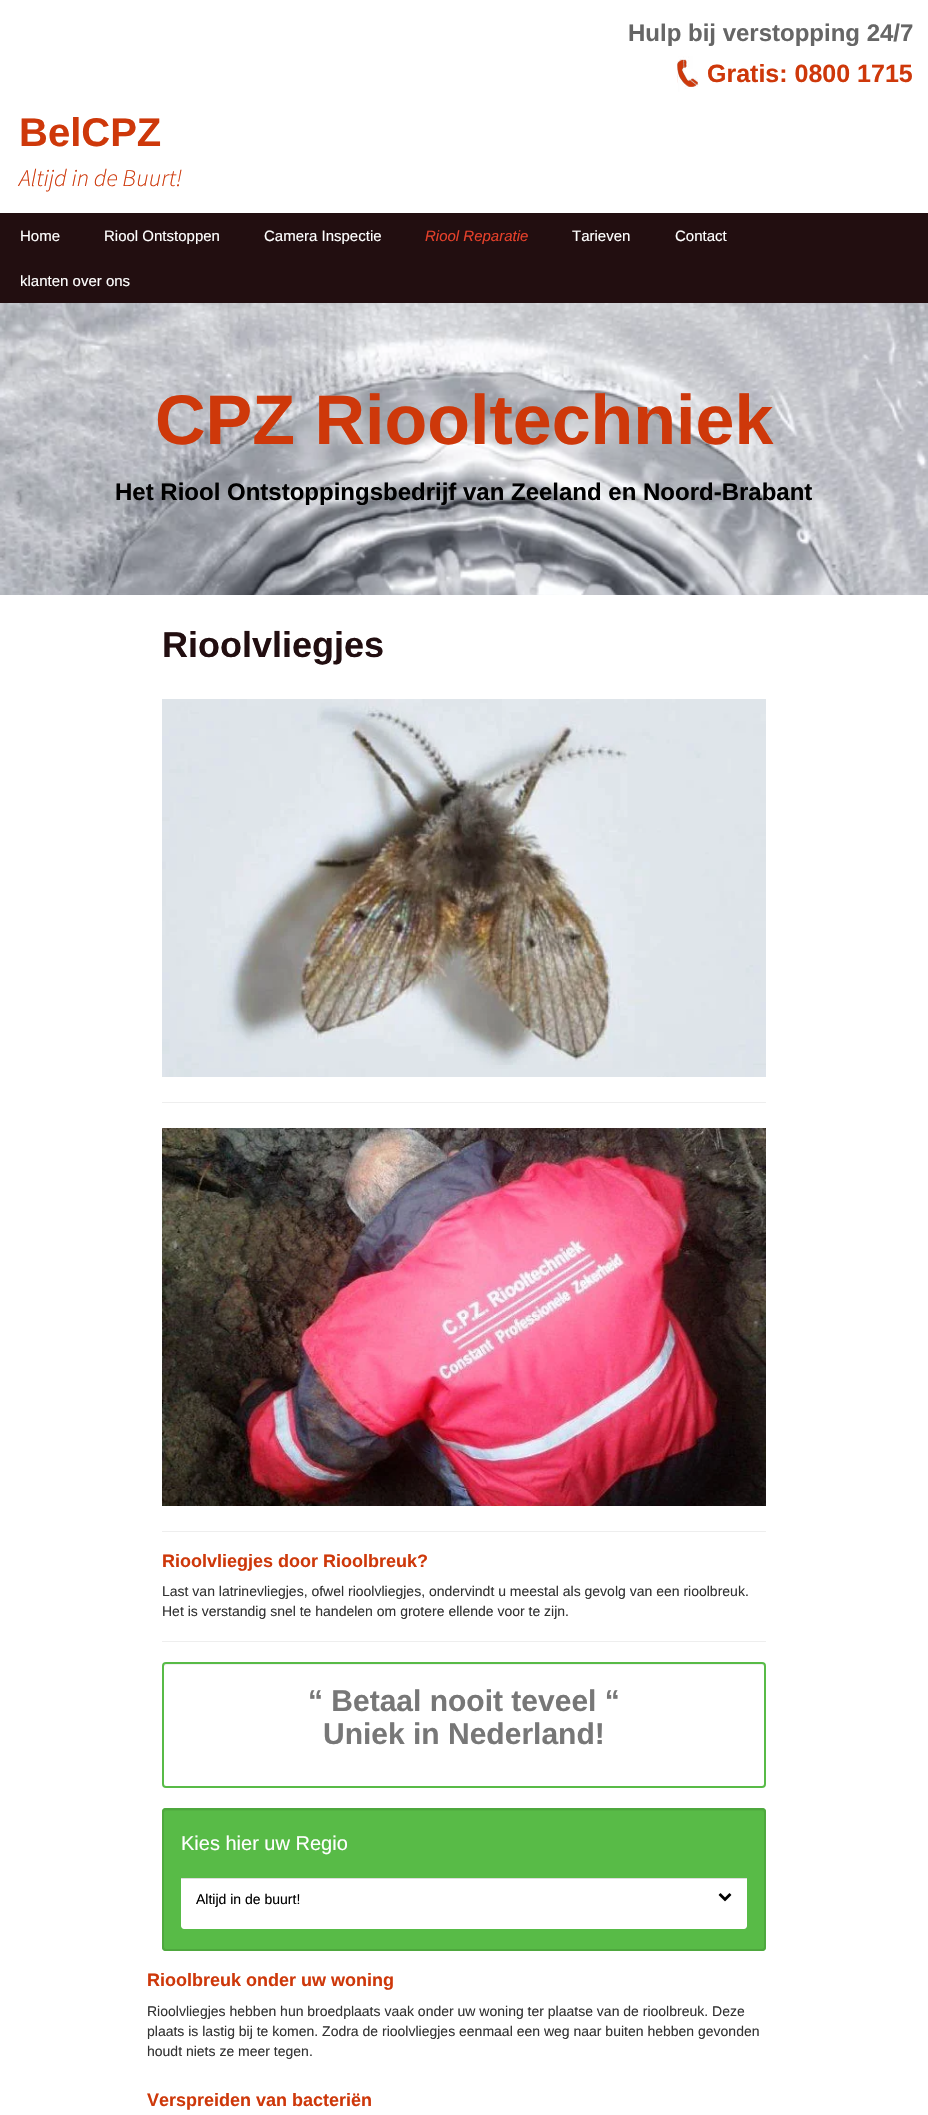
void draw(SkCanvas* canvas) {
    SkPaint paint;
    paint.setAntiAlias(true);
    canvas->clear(0xFFFFFFFF);
    SkFont font1(fontMgr->matchFamilyStyle("Liberation Sans", SkFontStyle::Bold()), 24);
    font1.setSubpixel(true);
    paint.setColor(0xFF666666);
    canvas->drawString("Hulp bij verstopping 24/7", 628, 41, font1, paint);
    paint.setColor(0xFFCE380A);
    canvas->drawRect(SkRect::MakeXYWH(677, 59, 21, 28), paint);
    canvas->drawImageRect(SkImages::DeferredFromEncodedData(SkData::MakeFromFileName("img1.png")), SkRect::MakeXYWH(677, 56, 30, 36), SkSamplingOptions());
    SkFont font2(fontMgr->matchFamilyStyle("Liberation Sans", SkFontStyle::Bold()), 25);
    font2.setSubpixel(true);
    canvas->drawString("Gratis: 0800 1715", 707, 82, font2, paint);
    SkFont font3(fontMgr->matchFamilyStyle("Liberation Sans", SkFontStyle::Bold()), 40);
    font3.setSubpixel(true);
    canvas->drawString("BelCPZ", 19, 146, font3, paint);
    SkFont font4(fontMgr->matchFamilyStyle("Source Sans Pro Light", SkFontStyle(300, SkFontStyle::kNormal_Width, SkFontStyle::kItalic_Slant)), 24);
    font4.setSubpixel(true);
    canvas->drawString("Altijd in de Buurt!", 19, 186, font4, paint);
    paint.setColor(0xFF220E10);
    canvas->drawRect(SkRect::MakeXYWH(0, 213, 928, 90), paint);
    SkFont font5(fontMgr->matchFamilyStyle("Liberation Sans", SkFontStyle::Normal()), 15);
    font5.setSubpixel(true);
    paint.setColor(0xFFFFFFFF);
    canvas->drawString("Home", 20, 241, font5, paint);
    canvas->drawString("Riool Ontstoppen", 104, 241, font5, paint);
    canvas->drawString("Camera Inspectie", 264, 241, font5, paint);
    SkFont font6(fontMgr->matchFamilyStyle("Liberation Sans", SkFontStyle::Italic()), 15);
    font6.setSubpixel(true);
    paint.setColor(0xFFE6402A);
    canvas->drawString("Riool Reparatie", 425, 241, font6, paint);
    paint.setColor(0xFFFFFFFF);
    canvas->drawString("Tarieven", 572, 241, font5, paint);
    canvas->drawString("Contact", 675, 241, font5, paint);
    canvas->drawString("klanten over ons", 20, 286, font5, paint);
    canvas->drawImageRect(SkImages::DeferredFromEncodedData(SkData::MakeFromFileName("img2.png")), SkRect::MakeXYWH(0, 303, 928, 292), SkSamplingOptions());
    SkFont font7(fontMgr->matchFamilyStyle("Liberation Sans", SkFontStyle::Bold()), 70);
    font7.setSubpixel(true);
    paint.setColor(0xFFCE380A);
    canvas->drawString("CPZ Riooltechniek", 155, 444, font7, paint);
    paint.setColor(0xFF000000);
    canvas->drawString("Het Riool Ontstoppingsbedrijf van Zeeland en Noord-Brabant", 115, 500, font1, paint);
    SkFont font8(fontMgr->matchFamilyStyle("Liberation Sans", SkFontStyle::Bold()), 36);
    font8.setSubpixel(true);
    paint.setColor(0xFF220E10);
    canvas->drawString("Rioolvliegjes", 162, 657, font8, paint);
    canvas->drawImageRect(SkImages::DeferredFromEncodedData(SkData::MakeFromFileName("img3.png")), SkRect::MakeXYWH(162, 699, 604, 378), SkSamplingOptions());
    paint.setColor(0xFFEEEEEE);
    canvas->drawRect(SkRect::MakeXYWH(162, 1102, 604, 1), paint);
    canvas->drawImageRect(SkImages::DeferredFromEncodedData(SkData::MakeFromFileName("img4.png")), SkRect::MakeXYWH(162, 1128, 604, 378), SkSamplingOptions());
    canvas->drawRect(SkRect::MakeXYWH(162, 1531, 604, 1), paint);
    SkFont font9(fontMgr->matchFamilyStyle("Liberation Sans", SkFontStyle::Bold()), 18);
    font9.setSubpixel(true);
    paint.setColor(0xFFCE380A);
    canvas->drawString("Rioolvliegjes door Rioolbreuk?", 162, 1567, font9, paint);
    SkFont font10(fontMgr->matchFamilyStyle("Liberation Sans", SkFontStyle::Normal()), 14);
    font10.setSubpixel(true);
    paint.setColor(0xFF333333);
    canvas->drawString("Last van latrinevliegjes, ofwel rioolvliegjes, ondervindt u meestal als gevolg van een rioolbreuk.", 162, 1596, font10, paint);
    canvas->drawString("Het is verstandig snel te handelen om grotere ellende voor te zijn.", 162, 1616, font10, paint);
    paint.setColor(0xFFEEEEEE);
    canvas->drawRect(SkRect::MakeXYWH(162, 1641, 604, 1), paint);
    paint.setColor(0xFFF2F2F2);
    canvas->drawPath(SkPathBuilder().moveTo(166, 1665).lineTo(762, 1665).cubicTo(763, 1665, 764, 1666, 764, 1667).cubicTo(764, 1666, 764, 1664, 762, 1664).lineTo(166, 1664).lineTo(164, 1665).lineTo(164, 1667).cubicTo(164, 1666, 165, 1665, 166, 1665).close().detach(), paint);
    paint.setStyle(SkPaint::kStroke_Style);
    paint.setStrokeWidth(2);
    paint.setColor(0xFF58BB47);
    canvas->drawRoundRect(SkRect::MakeXYWH(163, 1663, 602, 124), 3, 3, paint);
    SkFont font11(fontMgr->matchFamilyStyle("Liberation Sans", SkFontStyle::Bold()), 30);
    font11.setSubpixel(true);
    paint.setStyle(SkPaint::kFill_Style);
    paint.setColor(0xFF777777);
    canvas->drawString("“ Betaal nooit teveel “", 308, 1711, font11, paint);
    canvas->drawString("Uniek in Nederland!", 323, 1744, font11, paint);
    paint.setColor(0xFF58BB47);
    canvas->drawRoundRect(SkRect::MakeXYWH(162, 1808, 604, 143), 4, 4, paint);
    paint.setColor(0xFF54B243);
    canvas->drawPath(SkPathBuilder().moveTo(166, 1811).lineTo(762, 1811).cubicTo(763, 1811, 764, 1812, 764, 1813).cubicTo(764, 1812, 764, 1810, 762, 1810).lineTo(166, 1810).lineTo(164, 1811).lineTo(164, 1813).cubicTo(164, 1812, 165, 1811, 166, 1811).close().detach(), paint);
    paint.setStyle(SkPaint::kStroke_Style);
    paint.setColor(0xFF4EA83E);
    canvas->drawRoundRect(SkRect::MakeXYWH(163, 1809, 602, 141), 3, 3, paint);
    paint.setStyle(SkPaint::kFill_Style);
    paint.setColor(0xFFDDDDDD);
    canvas->drawRect(SkRect::MakeXYWH(181, 1878, 566, 1), paint);
    SkFont font12(fontMgr->matchFamilyStyle("Liberation Sans", SkFontStyle::Normal()), 20);
    font12.setSubpixel(true);
    paint.setColor(0xFFFFFFFF);
    canvas->drawString("Kies hier uw Regio", 181, 1850, font12, paint);
    canvas->drawPath(SkPathBuilder().moveTo(181, 1879).lineTo(747, 1879).lineTo(747, 1926).cubicTo(747, 1927.5f, 745.5f, 1929, 744, 1929).lineTo(184, 1929).cubicTo(182.5f, 1929, 181, 1927.5f, 181, 1926).close().detach(), paint);
    paint.setColor(0xFF000000);
    canvas->drawString("Altijd in de buurt!", 196, 1904, font10, paint);
    canvas->drawImageRect(SkImages::DeferredFromEncodedData(SkData::MakeFromFileName("img5.png")), SkRect::MakeXYWH(718, 1893, 14, 9), SkSamplingOptions());
    paint.setColor(0xFFCE380A);
    canvas->drawString("Rioolbreuk onder uw woning", 147, 1986, font9, paint);
    paint.setColor(0xFF333333);
    canvas->drawString("Rioolvliegjes hebben hun broedplaats vaak onder uw woning ter plaatse van de rioolbreuk. Deze", 147, 2016, font10, paint);
    canvas->drawString("plaats is lastig bij te komen. Zodra de rioolvliegjes eenmaal een weg naar buiten hebben gevonden", 147, 2036, font10, paint);
    canvas->drawString("houdt niets ze meer tegen.", 147, 2056, font10, paint);
    paint.setColor(0xFFCE380A);
    canvas->drawString("Verspreiden van bacteriën", 147, 2106, font9, paint);
}
